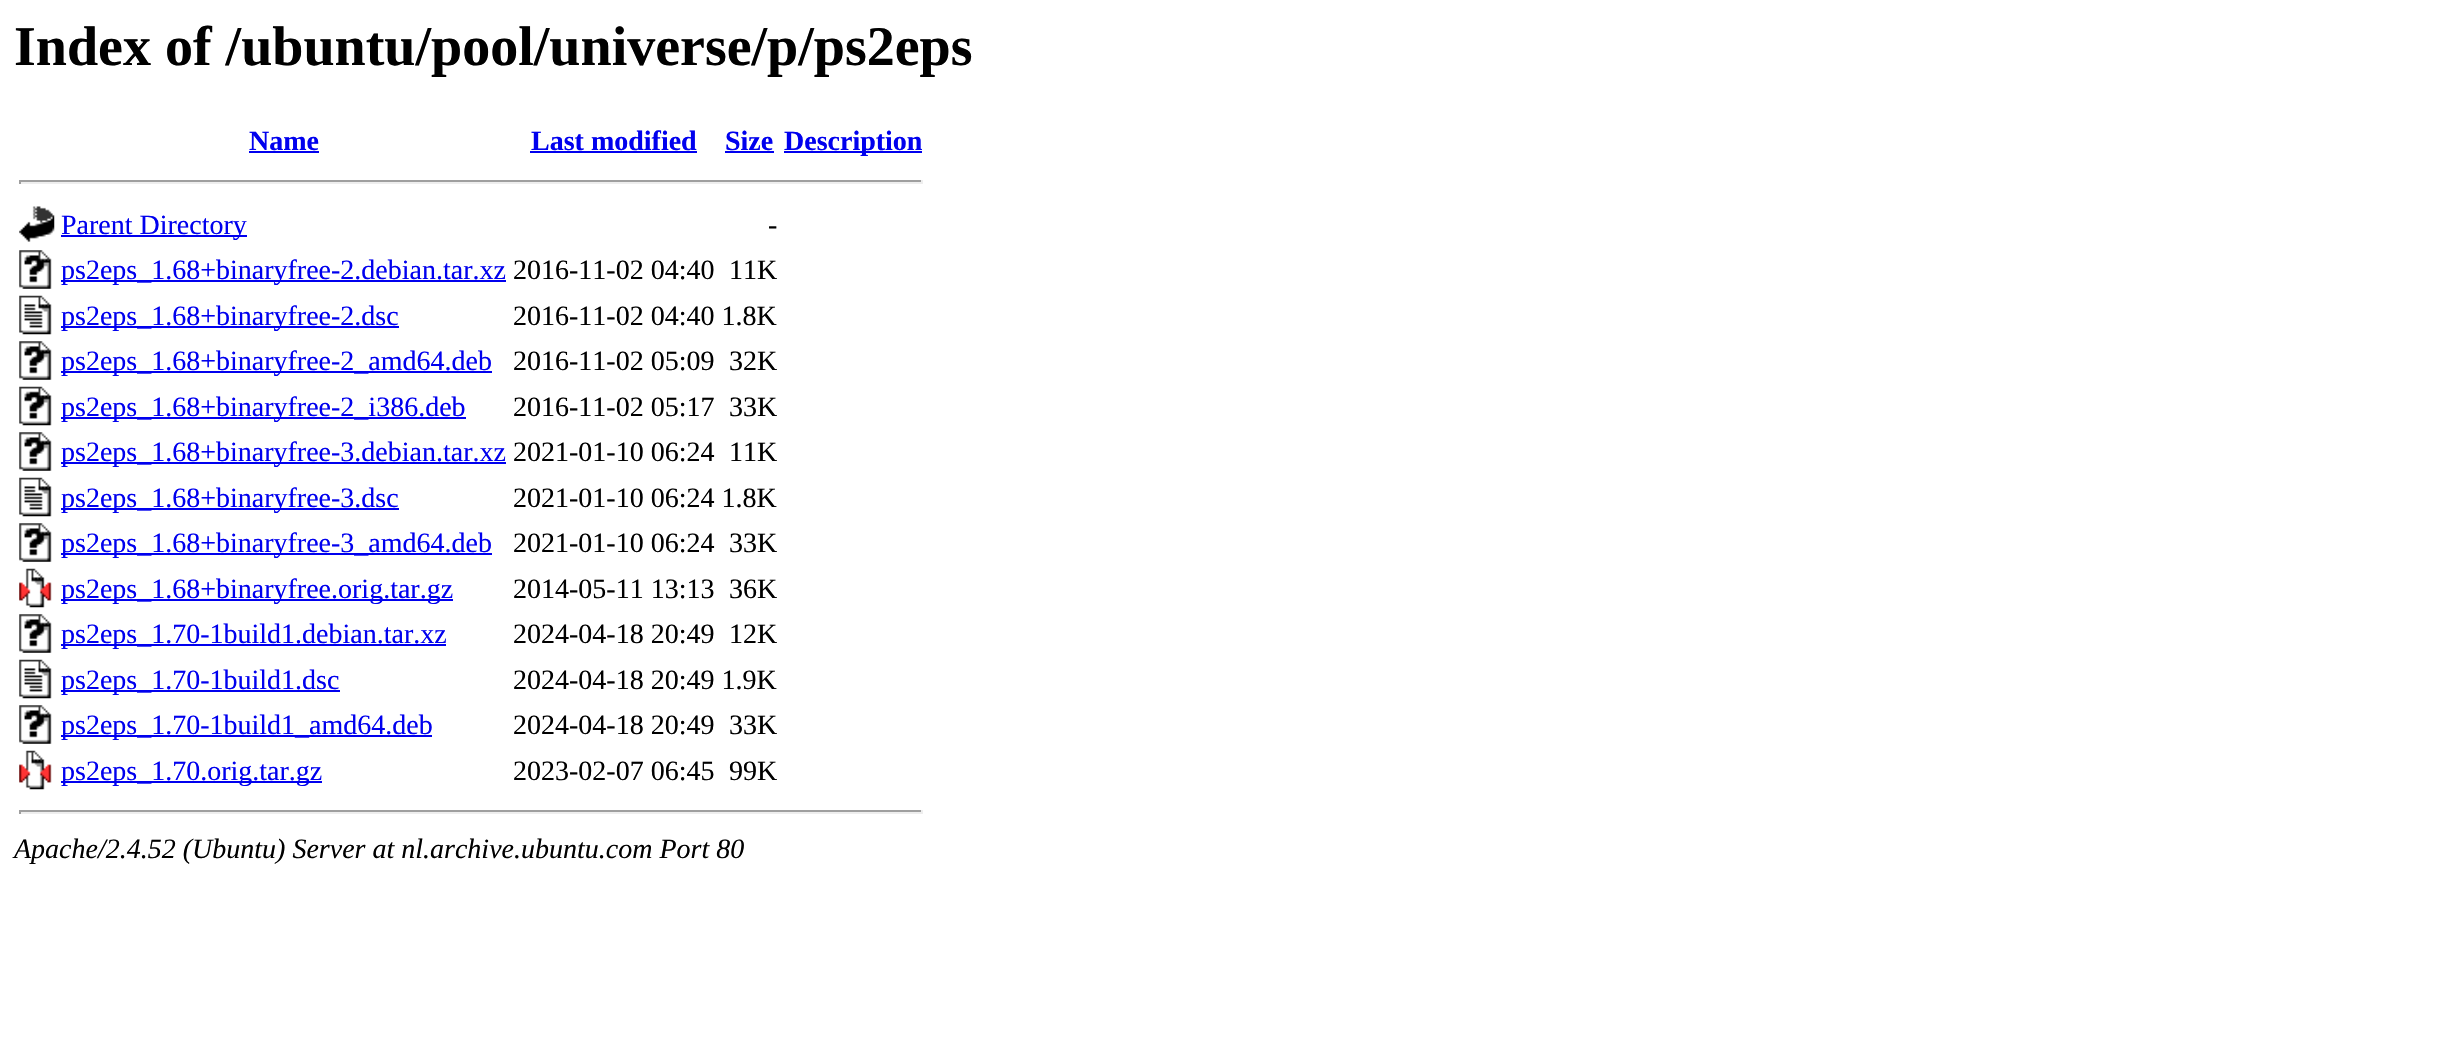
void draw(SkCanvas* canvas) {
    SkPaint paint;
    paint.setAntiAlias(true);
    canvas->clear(0xFFFFFFFF);
    SkFont font1(fontMgr->matchFamilyStyle("Liberation Serif", SkFontStyle::Bold()), 56);
    font1.setSubpixel(true);
    paint.setColor(0xFF000000);
    canvas->drawString("Index of /ubuntu/pool/universe/p/ps2eps", 14, 65, font1, paint);
    SkFont font2(fontMgr->matchFamilyStyle("Liberation Serif", SkFontStyle::Bold()), 28);
    font2.setSubpixel(true);
    paint.setColor(0xFF0000EE);
    canvas->drawString("Name", 249, 150, font2, paint);
    canvas->drawRect(SkRect::MakeXYWH(249, 151, 70, 2), paint);
    canvas->drawString("Last modified", 531, 150, font2, paint);
    canvas->drawRect(SkRect::MakeXYWH(530, 151, 167, 2), paint);
    canvas->drawString("Size", 725, 150, font2, paint);
    canvas->drawRect(SkRect::MakeXYWH(725, 151, 49, 2), paint);
    canvas->drawRect(SkRect::MakeXYWH(784, 151, 138, 2), paint);
    canvas->drawString("Description", 784, 150, font2, paint);
    paint.setColor(0xFF9F9F9F);
    canvas->drawRect(SkRect::MakeXYWH(19, 180, 903, 2), paint);
    paint.setColor(0xFFEEEEEE);
    canvas->drawRect(SkRect::MakeXYWH(921, 180, 2, 4), paint);
    canvas->drawRect(SkRect::MakeXYWH(19, 182, 903, 2), paint);
    paint.setColor(0xFF9F9F9F);
    canvas->drawRect(SkRect::MakeXYWH(19, 180, 2, 4), paint);
    canvas->drawImageRect(SkImages::DeferredFromEncodedData(SkData::MakeFromFileName("img1.png")), SkRect::MakeXYWH(19, 206, 36, 36), SkSamplingOptions());
    paint.setColor(0xFF0000EE);
    canvas->drawRect(SkRect::MakeXYWH(61, 235, 186, 2), paint);
    SkFont font3(fontMgr->matchFamilyStyle("Liberation Serif", SkFontStyle::Normal()), 28);
    font3.setSubpixel(true);
    canvas->drawString("Parent Directory", 61, 234, font3, paint);
    paint.setColor(0xFF000000);
    canvas->drawString("-", 768, 234, font3, paint);
    canvas->drawImageRect(SkImages::DeferredFromEncodedData(SkData::MakeFromFileName("img2.png")), SkRect::MakeXYWH(19, 250, 33, 39), SkSamplingOptions());
    paint.setColor(0xFF0000EE);
    canvas->drawRect(SkRect::MakeXYWH(61, 280, 445, 2), paint);
    canvas->drawString("ps2eps_1.68+binaryfree-2.debian.tar.xz", 61, 279, font3, paint);
    paint.setColor(0xFF000000);
    canvas->drawString("2016-11-02 04:40", 513, 279, font3, paint);
    canvas->drawString("11K", 729, 279, font3, paint);
    canvas->drawImageRect(SkImages::DeferredFromEncodedData(SkData::MakeFromFileName("img3.png")), SkRect::MakeXYWH(19, 295, 33, 40), SkSamplingOptions());
    paint.setColor(0xFF0000EE);
    canvas->drawRect(SkRect::MakeXYWH(61, 326, 338, 2), paint);
    canvas->drawString("ps2eps_1.68+binaryfree-2.dsc", 61, 325, font3, paint);
    paint.setColor(0xFF000000);
    canvas->drawString("2016-11-02 04:40 1.8K", 513, 325, font3, paint);
    canvas->drawImageRect(SkImages::DeferredFromEncodedData(SkData::MakeFromFileName("img2.png")), SkRect::MakeXYWH(19, 341, 33, 39), SkSamplingOptions());
    paint.setColor(0xFF0000EE);
    canvas->drawRect(SkRect::MakeXYWH(61, 371, 431, 2), paint);
    canvas->drawString("ps2eps_1.68+binaryfree-2_amd64.deb", 61, 370, font3, paint);
    paint.setColor(0xFF000000);
    canvas->drawString("2016-11-02 05:09", 513, 370, font3, paint);
    canvas->drawString("32K", 729, 370, font3, paint);
    canvas->drawImageRect(SkImages::DeferredFromEncodedData(SkData::MakeFromFileName("img4.png")), SkRect::MakeXYWH(19, 386, 33, 40), SkSamplingOptions());
    paint.setColor(0xFF0000EE);
    canvas->drawRect(SkRect::MakeXYWH(61, 417, 405, 2), paint);
    canvas->drawString("ps2eps_1.68+binaryfree-2_i386.deb", 61, 416, font3, paint);
    paint.setColor(0xFF000000);
    canvas->drawString("2016-11-02 05:17", 513, 416, font3, paint);
    canvas->drawString("33K", 729, 416, font3, paint);
    canvas->drawImageRect(SkImages::DeferredFromEncodedData(SkData::MakeFromFileName("img2.png")), SkRect::MakeXYWH(19, 432, 33, 39), SkSamplingOptions());
    paint.setColor(0xFF0000EE);
    canvas->drawRect(SkRect::MakeXYWH(61, 462, 445, 2), paint);
    canvas->drawString("ps2eps_1.68+binaryfree-3.debian.tar.xz", 61, 461, font3, paint);
    paint.setColor(0xFF000000);
    canvas->drawString("2021-01-10 06:24", 513, 461, font3, paint);
    canvas->drawString("11K", 729, 461, font3, paint);
    canvas->drawImageRect(SkImages::DeferredFromEncodedData(SkData::MakeFromFileName("img3.png")), SkRect::MakeXYWH(19, 477, 33, 40), SkSamplingOptions());
    paint.setColor(0xFF0000EE);
    canvas->drawRect(SkRect::MakeXYWH(61, 508, 338, 2), paint);
    canvas->drawString("ps2eps_1.68+binaryfree-3.dsc", 61, 507, font3, paint);
    paint.setColor(0xFF000000);
    canvas->drawString("2021-01-10 06:24 1.8K", 513, 507, font3, paint);
    canvas->drawImageRect(SkImages::DeferredFromEncodedData(SkData::MakeFromFileName("img2.png")), SkRect::MakeXYWH(19, 523, 33, 39), SkSamplingOptions());
    paint.setColor(0xFF0000EE);
    canvas->drawRect(SkRect::MakeXYWH(61, 553, 431, 2), paint);
    canvas->drawString("ps2eps_1.68+binaryfree-3_amd64.deb", 61, 552, font3, paint);
    paint.setColor(0xFF000000);
    canvas->drawString("2021-01-10 06:24", 513, 552, font3, paint);
    canvas->drawString("33K", 729, 552, font3, paint);
    canvas->drawImageRect(SkImages::DeferredFromEncodedData(SkData::MakeFromFileName("img5.png")), SkRect::MakeXYWH(19, 568, 33, 40), SkSamplingOptions());
    paint.setColor(0xFF0000EE);
    canvas->drawRect(SkRect::MakeXYWH(61, 599, 392, 2), paint);
    canvas->drawString("ps2eps_1.68+binaryfree.orig.tar.gz", 61, 598, font3, paint);
    paint.setColor(0xFF000000);
    canvas->drawString("2014-05-11 13:13", 513, 598, font3, paint);
    canvas->drawString("36K", 729, 598, font3, paint);
    canvas->drawImageRect(SkImages::DeferredFromEncodedData(SkData::MakeFromFileName("img2.png")), SkRect::MakeXYWH(19, 614, 33, 39), SkSamplingOptions());
    paint.setColor(0xFF0000EE);
    canvas->drawRect(SkRect::MakeXYWH(61, 644, 385, 2), paint);
    canvas->drawString("ps2eps_1.70-1build1.debian.tar.xz", 61, 643, font3, paint);
    paint.setColor(0xFF000000);
    canvas->drawString("2024-04-18 20:49", 513, 643, font3, paint);
    canvas->drawString("12K", 729, 643, font3, paint);
    canvas->drawImageRect(SkImages::DeferredFromEncodedData(SkData::MakeFromFileName("img3.png")), SkRect::MakeXYWH(19, 659, 33, 40), SkSamplingOptions());
    paint.setColor(0xFF0000EE);
    canvas->drawRect(SkRect::MakeXYWH(61, 690, 279, 2), paint);
    canvas->drawString("ps2eps_1.70-1build1.dsc", 61, 689, font3, paint);
    paint.setColor(0xFF000000);
    canvas->drawString("2024-04-18 20:49 1.9K", 513, 689, font3, paint);
    canvas->drawImageRect(SkImages::DeferredFromEncodedData(SkData::MakeFromFileName("img2.png")), SkRect::MakeXYWH(19, 705, 33, 39), SkSamplingOptions());
    paint.setColor(0xFF0000EE);
    canvas->drawRect(SkRect::MakeXYWH(61, 735, 371, 2), paint);
    canvas->drawString("ps2eps_1.70-1build1_amd64.deb", 61, 734, font3, paint);
    paint.setColor(0xFF000000);
    canvas->drawString("2024-04-18 20:49", 513, 734, font3, paint);
    canvas->drawString("33K", 729, 734, font3, paint);
    canvas->drawImageRect(SkImages::DeferredFromEncodedData(SkData::MakeFromFileName("img5.png")), SkRect::MakeXYWH(19, 750, 33, 40), SkSamplingOptions());
    paint.setColor(0xFF0000EE);
    canvas->drawRect(SkRect::MakeXYWH(61, 781, 261, 2), paint);
    canvas->drawString("ps2eps_1.70.orig.tar.gz", 61, 780, font3, paint);
    paint.setColor(0xFF000000);
    canvas->drawString("2023-02-07 06:45", 513, 780, font3, paint);
    canvas->drawString("99K", 729, 780, font3, paint);
    paint.setColor(0xFF9F9F9F);
    canvas->drawRect(SkRect::MakeXYWH(19, 810, 903, 2), paint);
    paint.setColor(0xFFEEEEEE);
    canvas->drawRect(SkRect::MakeXYWH(921, 810, 2, 4), paint);
    canvas->drawRect(SkRect::MakeXYWH(19, 812, 903, 2), paint);
    paint.setColor(0xFF9F9F9F);
    canvas->drawRect(SkRect::MakeXYWH(19, 810, 2, 4), paint);
    SkFont font4(fontMgr->matchFamilyStyle("Liberation Serif", SkFontStyle::Italic()), 28);
    font4.setSubpixel(true);
    paint.setColor(0xFF000000);
    canvas->drawString("Apache/2.4.52 (Ubuntu) Server at nl.archive.ubuntu.com Port 80", 14, 858, font4, paint);
}
